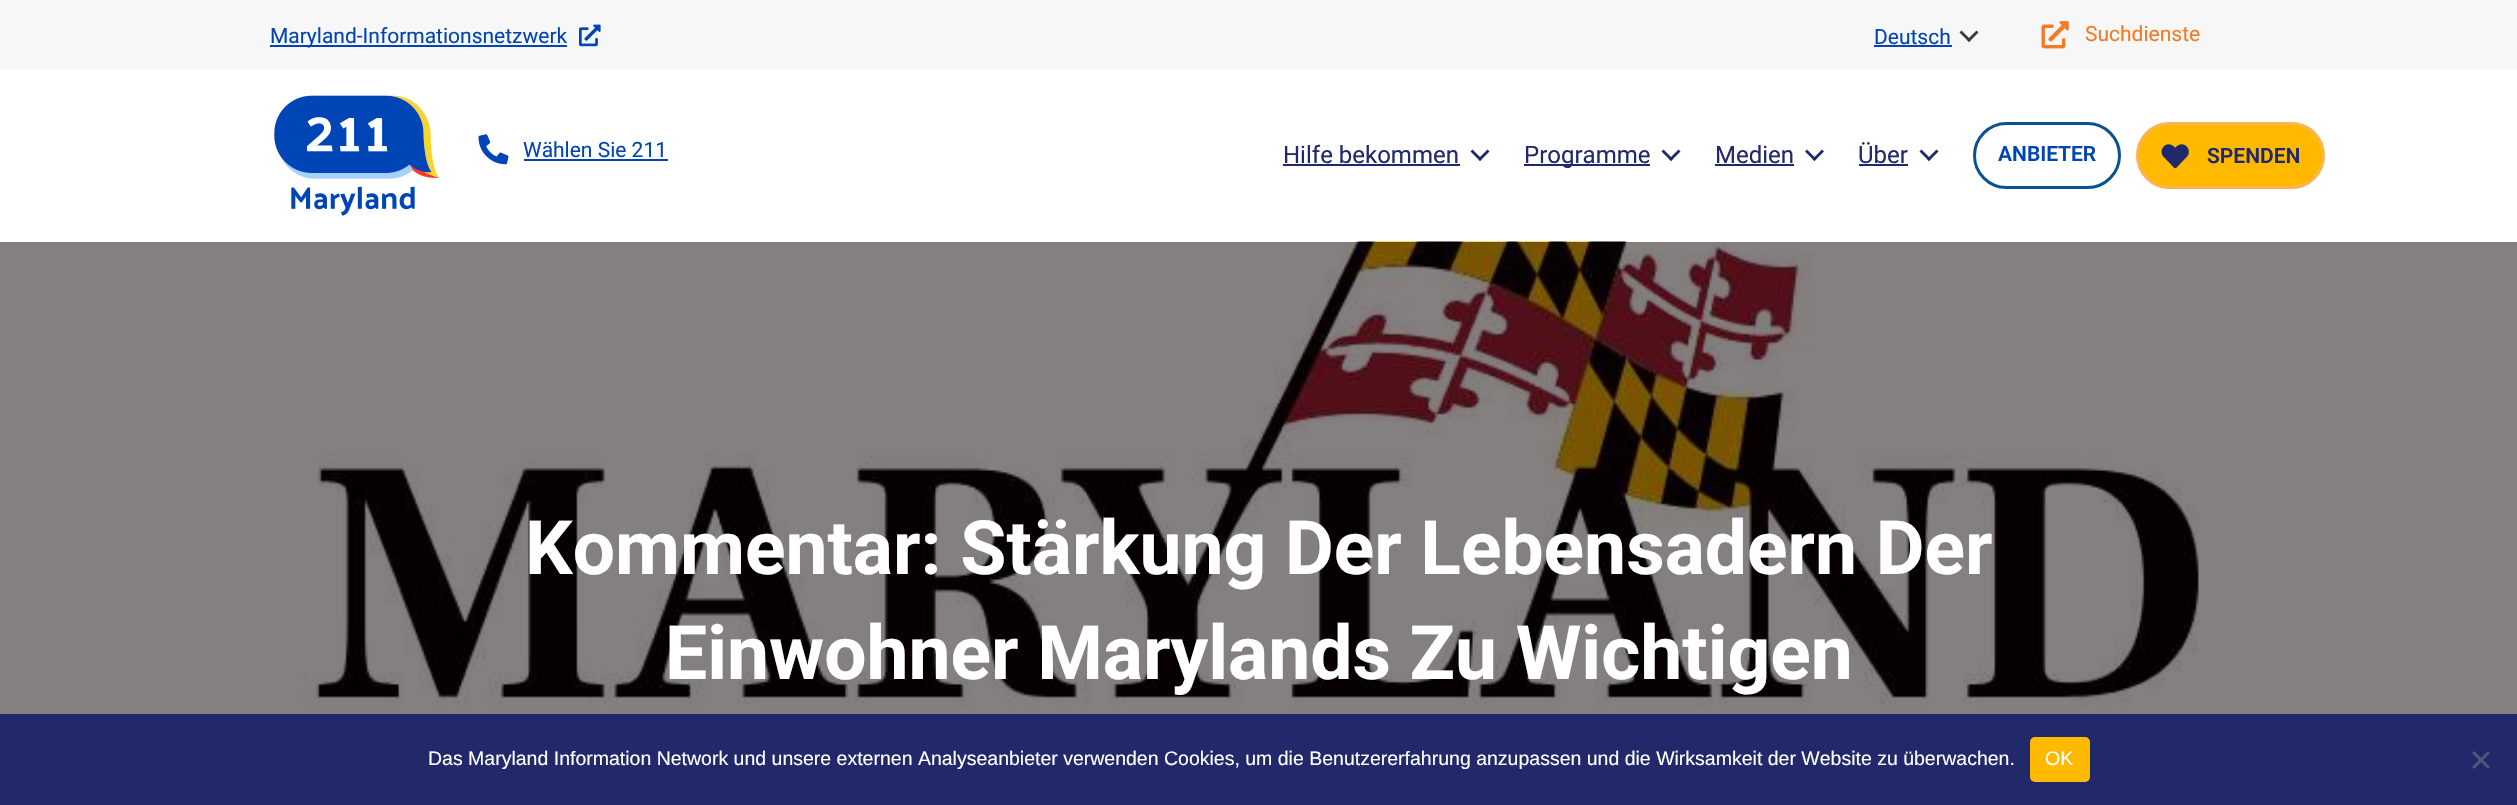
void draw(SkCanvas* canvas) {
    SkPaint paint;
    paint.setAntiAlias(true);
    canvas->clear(0xFF858080);
    paint.setColor(0xFFF7F7F7);
    canvas->drawRect(SkRect::MakeXYWH(0, 0, 2517, 69), paint);
    paint.setColor(0xFF0044B5);
    canvas->drawRect(SkRect::MakeXYWH(270, 45, 297, 2), paint);
    SkFont font1(fontMgr->matchFamilyStyle("Roboto", SkFontStyle::Normal()), 21);
    font1.setSubpixel(true);
    canvas->drawString("Maryland-Informationsnetzwerk", 270, 43, font1, paint);
    canvas->drawImageRect(SkImages::DeferredFromEncodedData(SkData::MakeFromFileName("img1.png")), SkRect::MakeXYWH(579, 24, 22, 23), SkSamplingOptions());
    canvas->drawString("Deutsch", 1874, 44, font1, paint);
    canvas->drawRect(SkRect::MakeXYWH(1874, 45, 78, 2), paint);
    paint.setColor(0xFF3A3A3A);
    canvas->drawPath(SkPathBuilder().moveTo(1976.5f, 30.5f).lineTo(1978.5f, 32.5f).lineTo(1969, 42).lineTo(1967, 40).close().detach(), paint);
    canvas->drawPath(SkPathBuilder().moveTo(1961.5f, 30.5f).lineTo(1971, 40).lineTo(1969, 42).lineTo(1959.5f, 32.5f).close().detach(), paint);
    canvas->drawImageRect(SkImages::DeferredFromEncodedData(SkData::MakeFromFileName("img2.png")), SkRect::MakeXYWH(2041, 21, 28, 28), SkSamplingOptions());
    paint.setColor(0xFFF47925);
    canvas->drawString("Suchdienste", 2085, 41, font1, paint);
    paint.setColor(0xFFFFFFFF);
    canvas->drawRect(SkRect::MakeXYWH(0, 69, 2517, 173), paint);
    canvas->drawImageRect(SkImages::DeferredFromEncodedData(SkData::MakeFromFileName("img3.png")), SkRect::MakeXYWH(274, 95, 165, 121), SkSamplingOptions());
    canvas->drawImageRect(SkImages::DeferredFromEncodedData(SkData::MakeFromFileName("img4.png")), SkRect::MakeXYWH(478, 134, 31, 31), SkSamplingOptions());
    paint.setColor(0xFF0044B5);
    canvas->drawString("Wählen Sie 211", 523, 157, font1, paint);
    canvas->drawRect(SkRect::MakeXYWH(524, 159, 144, 2), paint);
    SkFont font2(fontMgr->matchFamilyStyle("Roboto", SkFontStyle::Normal()), 24);
    font2.setSubpixel(true);
    paint.setColor(0xFF21296B);
    canvas->drawString("Hilfe bekommen", 1283, 163, font2, paint);
    canvas->drawRect(SkRect::MakeXYWH(1283, 164, 177, 2), paint);
    canvas->drawPath(SkPathBuilder().moveTo(1487.5f, 149.5f).lineTo(1489.5f, 151.5f).lineTo(1480, 161).lineTo(1478, 159).close().detach(), paint);
    canvas->drawPath(SkPathBuilder().moveTo(1472.5f, 149.5f).lineTo(1482, 159).lineTo(1480, 161).lineTo(1470.5f, 151.5f).close().detach(), paint);
    canvas->drawRect(SkRect::MakeXYWH(1524, 164, 126, 2), paint);
    canvas->drawString("Programme", 1524, 163, font2, paint);
    canvas->drawPath(SkPathBuilder().moveTo(1678.5f, 149.5f).lineTo(1680.5f, 151.5f).lineTo(1671, 161).lineTo(1669, 159).close().detach(), paint);
    canvas->drawPath(SkPathBuilder().moveTo(1663.5f, 149.5f).lineTo(1673, 159).lineTo(1671, 161).lineTo(1661.5f, 151.5f).close().detach(), paint);
    canvas->drawString("Medien", 1715, 163, font2, paint);
    canvas->drawRect(SkRect::MakeXYWH(1715, 164, 79, 2), paint);
    canvas->drawPath(SkPathBuilder().moveTo(1822, 149.5f).lineTo(1824, 151.5f).lineTo(1814.5f, 161).lineTo(1812.5f, 159).close().detach(), paint);
    canvas->drawPath(SkPathBuilder().moveTo(1807, 149.5f).lineTo(1816.5f, 159).lineTo(1814.5f, 161).lineTo(1805, 151.5f).close().detach(), paint);
    canvas->drawString("Über", 1858, 163, font2, paint);
    canvas->drawRect(SkRect::MakeXYWH(1859, 164, 49, 2), paint);
    canvas->drawPath(SkPathBuilder().moveTo(1936.5f, 149.5f).lineTo(1938.5f, 151.5f).lineTo(1929, 161).lineTo(1927, 159).close().detach(), paint);
    canvas->drawPath(SkPathBuilder().moveTo(1921.5f, 149.5f).lineTo(1931, 159).lineTo(1929, 161).lineTo(1919.5f, 151.5f).close().detach(), paint);
    paint.setStyle(SkPaint::kStroke_Style);
    paint.setStrokeWidth(3);
    paint.setColor(0xFF095291);
    canvas->drawRoundRect(SkRect::MakeXYWH(1974.5f, 123.5f, 145, 64), 32, 32, paint);
    SkFont font3(fontMgr->matchFamilyStyle("Roboto", SkFontStyle(600, SkFontStyle::kNormal_Width, SkFontStyle::kUpright_Slant)), 21);
    font3.setSubpixel(true);
    paint.setStyle(SkPaint::kFill_Style);
    paint.setColor(0xFF0044B5);
    canvas->drawString("ANBIETER", 1998, 161, font3, paint);
    paint.setColor(0xFFFFBA00);
    canvas->drawRoundRect(SkRect::MakeXYWH(2137.5f, 123.5f, 186, 64), 32, 32, paint);
    paint.setStyle(SkPaint::kStroke_Style);
    paint.setColor(0xFFFDB352);
    canvas->drawRoundRect(SkRect::MakeXYWH(2137.5f, 123.5f, 186, 64), 32, 32, paint);
    canvas->drawImageRect(SkImages::DeferredFromEncodedData(SkData::MakeFromFileName("img5.png")), SkRect::MakeXYWH(2161, 144, 28, 25), SkSamplingOptions());
    paint.setStyle(SkPaint::kFill_Style);
    paint.setColor(0xFF21296B);
    canvas->drawString("SPENDEN", 2207, 163, font3, paint);
    canvas->drawImageRect(SkImages::DeferredFromEncodedData(SkData::MakeFromFileName("img6.png")), SkRect::MakeXYWH(34, 241, 2416, 473), SkSamplingOptions());
    SkFont font4(fontMgr->matchFamilyStyle("Roboto", SkFontStyle::Bold()), 75);
    font4.setSubpixel(true);
    paint.setColor(0xFFFFFFFF);
    canvas->drawString("Kommentar: Stärkung Der Lebensadern Der", 525, 574, font4, paint);
    canvas->drawString("Einwohner Marylands Zu Wichtigen", 665, 679, font4, paint);
    paint.setColor(0xFF21296B);
    canvas->drawRect(SkRect::MakeXYWH(0, 714, 2517, 91), paint);
    SkFont font5(fontMgr->matchFamilyStyle("Liberation Sans", SkFontStyle::Normal()), 19.5f);
    font5.setSubpixel(true);
    paint.setColor(0xFFFFFFFF);
    canvas->drawString("Das Maryland Information Network und unsere externen Analyseanbieter verwenden Cookies, um die Benutzererfahrung anzupassen und die Wirksamkeit der Website zu überwachen.", 428, 765, font5, paint);
    paint.setColor(0xFFFFBA00);
    canvas->drawRoundRect(SkRect::MakeXYWH(2030, 737, 60, 45), 5, 5, paint);
    paint.setColor(0xFFFFFFFF);
    canvas->drawString("OK", 2045, 765, font5, paint);
    paint.setColor(0xFF515576);
    canvas->drawPath(SkPathBuilder().moveTo(2488, 751).lineTo(2490, 753).lineTo(2474, 769).lineTo(2472, 767).close().detach(), paint);
    canvas->drawPath(SkPathBuilder().moveTo(2472, 753).lineTo(2474, 751).lineTo(2490, 767).lineTo(2488, 769).close().detach(), paint);
}
